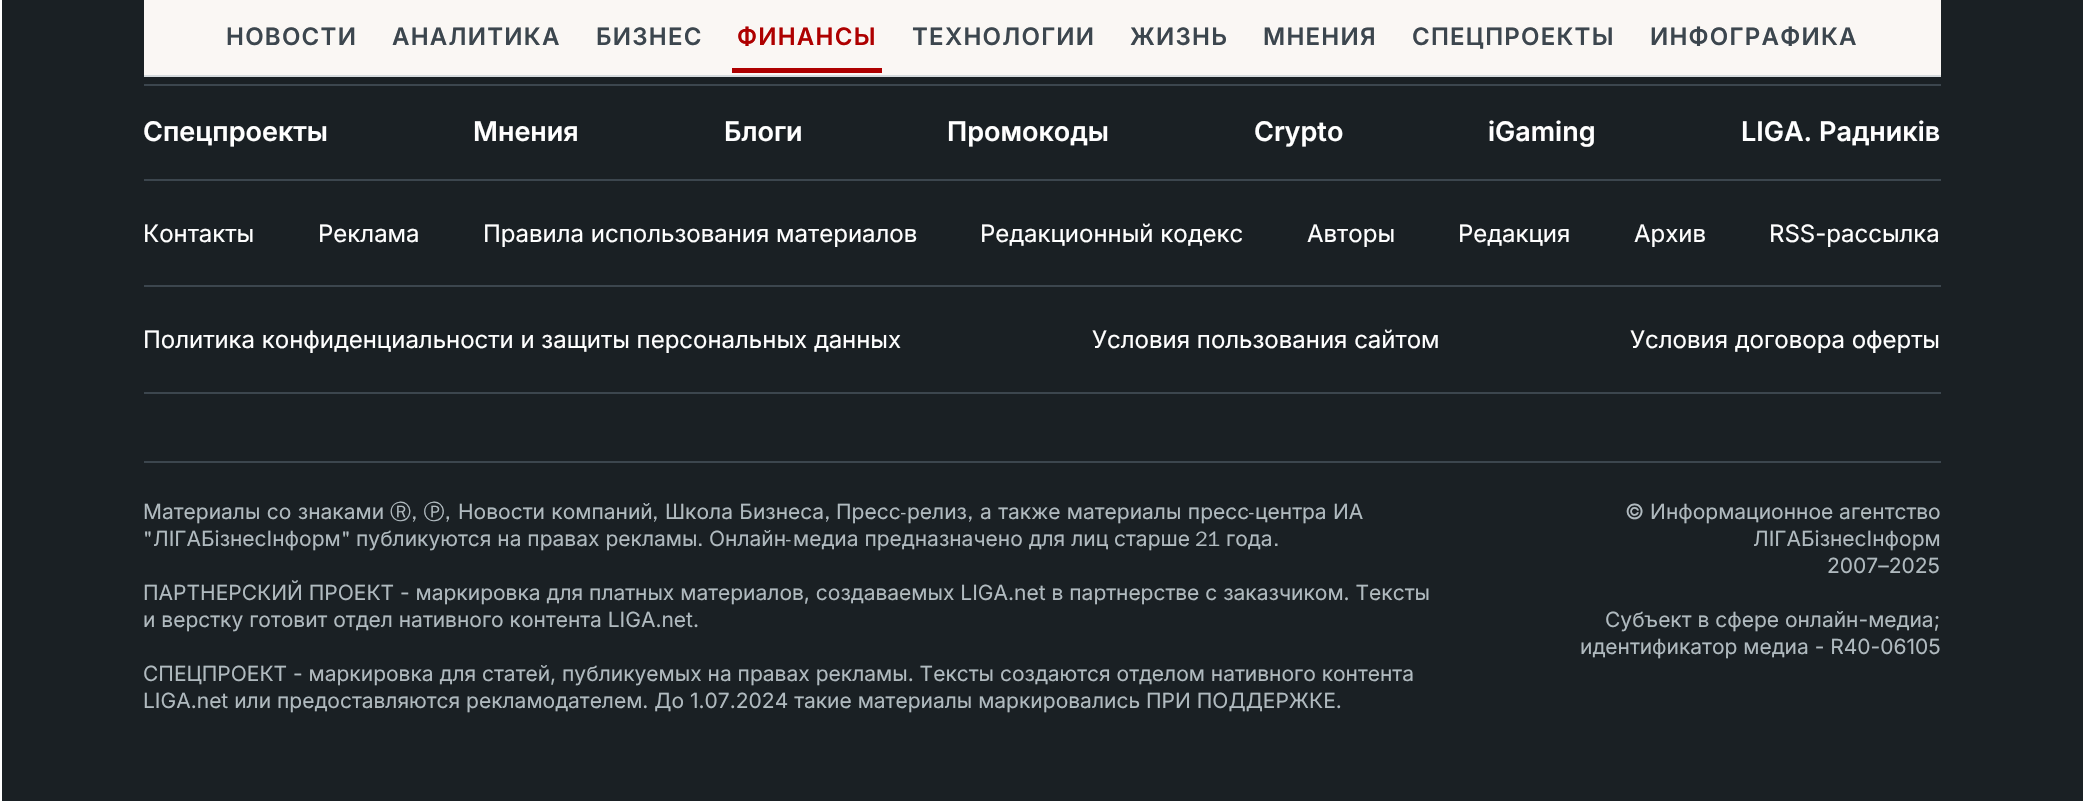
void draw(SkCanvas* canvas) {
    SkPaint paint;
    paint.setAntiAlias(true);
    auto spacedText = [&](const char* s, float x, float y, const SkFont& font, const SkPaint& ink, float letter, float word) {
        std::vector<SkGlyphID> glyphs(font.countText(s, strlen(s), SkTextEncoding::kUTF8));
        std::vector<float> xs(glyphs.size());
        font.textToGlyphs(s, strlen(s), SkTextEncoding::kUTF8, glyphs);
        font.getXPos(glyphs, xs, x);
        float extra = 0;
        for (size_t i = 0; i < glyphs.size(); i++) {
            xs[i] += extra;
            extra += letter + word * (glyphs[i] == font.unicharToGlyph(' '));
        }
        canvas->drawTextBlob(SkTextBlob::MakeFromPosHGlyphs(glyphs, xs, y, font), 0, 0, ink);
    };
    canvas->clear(0xFFFFFFFF);
    paint.setColor(0xFF1A2024);
    canvas->drawRect(SkRect::MakeXYWH(2, 0, 2081, 801), paint);
    paint.setColor(0xFFFAF7F4);
    canvas->drawRect(SkRect::MakeXYWH(144, 0, 1797, 75), paint);
    paint.setColor(0xFFD5DADD);
    canvas->drawRect(SkRect::MakeXYWH(144, 75, 1797, 2), paint);
    SkFont font1(fontMgr->matchFamilyStyle("Inter", SkFontStyle(600, SkFontStyle::kNormal_Width, SkFontStyle::kUpright_Slant)), 24);
    font1.setSubpixel(true);
    paint.setColor(0xFF3C464E);
    spacedText("НОВОСТИ", 226, 45, font1, paint, 1.25f, 0);
    spacedText("АНАЛИТИКА", 392, 45, font1, paint, 1.25f, 0);
    spacedText("БИЗНЕС", 596, 45, font1, paint, 1.25f, 0);
    paint.setColor(0xFFAE0000);
    spacedText("ФИНАНСЫ", 737, 45, font1, paint, 1.25f, 0);
    canvas->drawRect(SkRect::MakeXYWH(732, 68, 150, 5), paint);
    paint.setColor(0xFF3C464E);
    spacedText("ТЕХНОЛОГИИ", 912, 45, font1, paint, 1.25f, 0);
    spacedText("ЖИЗНЬ", 1130, 45, font1, paint, 1.25f, 0);
    spacedText("МНЕНИЯ", 1263, 45, font1, paint, 1.25f, 0);
    spacedText("СПЕЦПРОЕКТЫ", 1412, 45, font1, paint, 1.25f, 0);
    spacedText("ИНФОГРАФИКА", 1650, 45, font1, paint, 1.25f, 0);
    canvas->drawRect(SkRect::MakeXYWH(144, 84, 1797, 2), paint);
    canvas->drawRect(SkRect::MakeXYWH(144, 179, 1797, 2), paint);
    SkFont font2(fontMgr->matchFamilyStyle("Inter", SkFontStyle(600, SkFontStyle::kNormal_Width, SkFontStyle::kUpright_Slant)), 27);
    font2.setSubpixel(true);
    paint.setColor(0xFFFFFFFF);
    canvas->drawString("Спецпроекты", 143, 141, font2, paint);
    canvas->drawString("Мнения", 473, 141, font2, paint);
    canvas->drawString("Блоги", 724, 141, font2, paint);
    canvas->drawString("Промокоды", 947, 141, font2, paint);
    canvas->drawString("Crypto", 1254, 141, font2, paint);
    canvas->drawString("iGaming", 1488, 141, font2, paint);
    canvas->drawString("LIGA. Радників", 1741, 141, font2, paint);
    paint.setColor(0xFF3C464E);
    canvas->drawRect(SkRect::MakeXYWH(144, 285, 1797, 2), paint);
    SkFont font3(fontMgr->matchFamilyStyle("Inter", SkFontStyle::Normal()), 24);
    font3.setSubpixel(true);
    paint.setColor(0xFFFFFFFF);
    canvas->drawString("Контакты", 143, 242, font3, paint);
    canvas->drawString("Реклама", 318, 242, font3, paint);
    canvas->drawString("Правила использования материалов", 483, 242, font3, paint);
    canvas->drawString("Редакционный кодекс", 980, 242, font3, paint);
    canvas->drawString("Авторы", 1307, 242, font3, paint);
    canvas->drawString("Редакция", 1458, 242, font3, paint);
    canvas->drawString("Архив", 1634, 242, font3, paint);
    canvas->drawString("RSS-рассылка", 1769, 242, font3, paint);
    paint.setColor(0xFF3C464E);
    canvas->drawRect(SkRect::MakeXYWH(144, 392, 1797, 2), paint);
    paint.setColor(0xFFFFFFFF);
    canvas->drawString("Политика конфиденциальности и защиты персональных данных", 143, 348, font3, paint);
    canvas->drawString("Условия пользования сайтом", 1092, 348, font3, paint);
    canvas->drawString("Условия договора оферты", 1630, 348, font3, paint);
    paint.setColor(0xFF3C464E);
    canvas->drawRect(SkRect::MakeXYWH(144, 461, 1797, 2), paint);
    SkFont font4(fontMgr->matchFamilyStyle("Inter", SkFontStyle::Normal()), 21);
    font4.setSubpixel(true);
    paint.setColor(0xFFB0BABF);
    spacedText("Материалы со знаками", 143, 519, font4, paint, 0, 0.5f);
    SkFont font5(fontMgr->matchFamilyStyle("WenQuanYi Zen Hei", SkFontStyle(500, SkFontStyle::kNormal_Width, SkFontStyle::kUpright_Slant)), 21);
    font5.setSubpixel(true);
    canvas->drawString("Ⓡ, Ⓟ,", 390, 519, font5, paint);
    spacedText("Новости компаний", 458, 519, font4, paint, 0, 0.5f);
    spacedText("Школа Бизнеса", 665, 519, font4, paint, 0, 0.5f);
    canvas->drawString("Пресс", 836, 519, font4, paint);
    canvas->drawString("-", 901, 519, font5, paint);
    canvas->drawString("релиз", 907, 519, font4, paint);
    spacedText("а также материалы пресс", 980, 519, font4, paint, 0, 0.5f);
    canvas->drawString("-", 1249, 519, font5, paint);
    spacedText("центра ИА", 1255, 519, font4, paint, 0, 0.5f);
    canvas->drawString(",", 652, 519, font5, paint);
    canvas->drawString(",", 824, 519, font5, paint);
    canvas->drawString(",", 967, 519, font5, paint);
    canvas->drawString("\"", 143, 546, font5, paint);
    canvas->drawString("ЛІГАБізнесІнформ", 153, 546, font4, paint);
    canvas->drawString("\"", 341, 546, font5, paint);
    canvas->drawString("публикуются на правах рекламы", 356, 546, font4, paint);
    canvas->drawString("Онлайн", 709, 546, font4, paint);
    canvas->drawString("-", 786, 546, font5, paint);
    canvas->drawString("медиа предназначено для лиц старше", 793, 546, font4, paint);
    canvas->drawString("21", 1195, 546, font5, paint);
    canvas->drawString("года", 1226, 546, font4, paint);
    canvas->drawString(".", 697, 546, font5, paint);
    canvas->drawString(".", 1273, 546, font5, paint);
    canvas->drawString("ПАРТНЕРСКИЙ ПРОЕКТ - маркировка для платных материалов, создаваемых LIGA.net в партнерстве с заказчиком. Тексты", 143, 600, font4, paint);
    canvas->drawString("и верстку готовит отдел нативного контента LIGA.net.", 143, 627, font4, paint);
    canvas->drawString("СПЕЦПРОЕКТ - маркировка для статей, публикуемых на правах рекламы. Тексты создаются отделом нативного контента", 143, 681, font4, paint);
    canvas->drawString("LIGA.net или предоставляются рекламодателем. До 1.07.2024 такие материалы маркировались ПРИ ПОДДЕРЖКЕ.", 143, 708, font4, paint);
    canvas->drawString("© Информационное агентство", 1625, 519, font4, paint);
    canvas->drawString("ЛІГАБізнесІнформ", 1753, 546, font4, paint);
    canvas->drawString("2007–2025", 1827, 573, font4, paint);
    canvas->drawString("Субъект в сфере онлайн-медиа;", 1605, 627, font4, paint);
    canvas->drawString("идентификатор медиа - R40-06105", 1580, 654, font4, paint);
}
